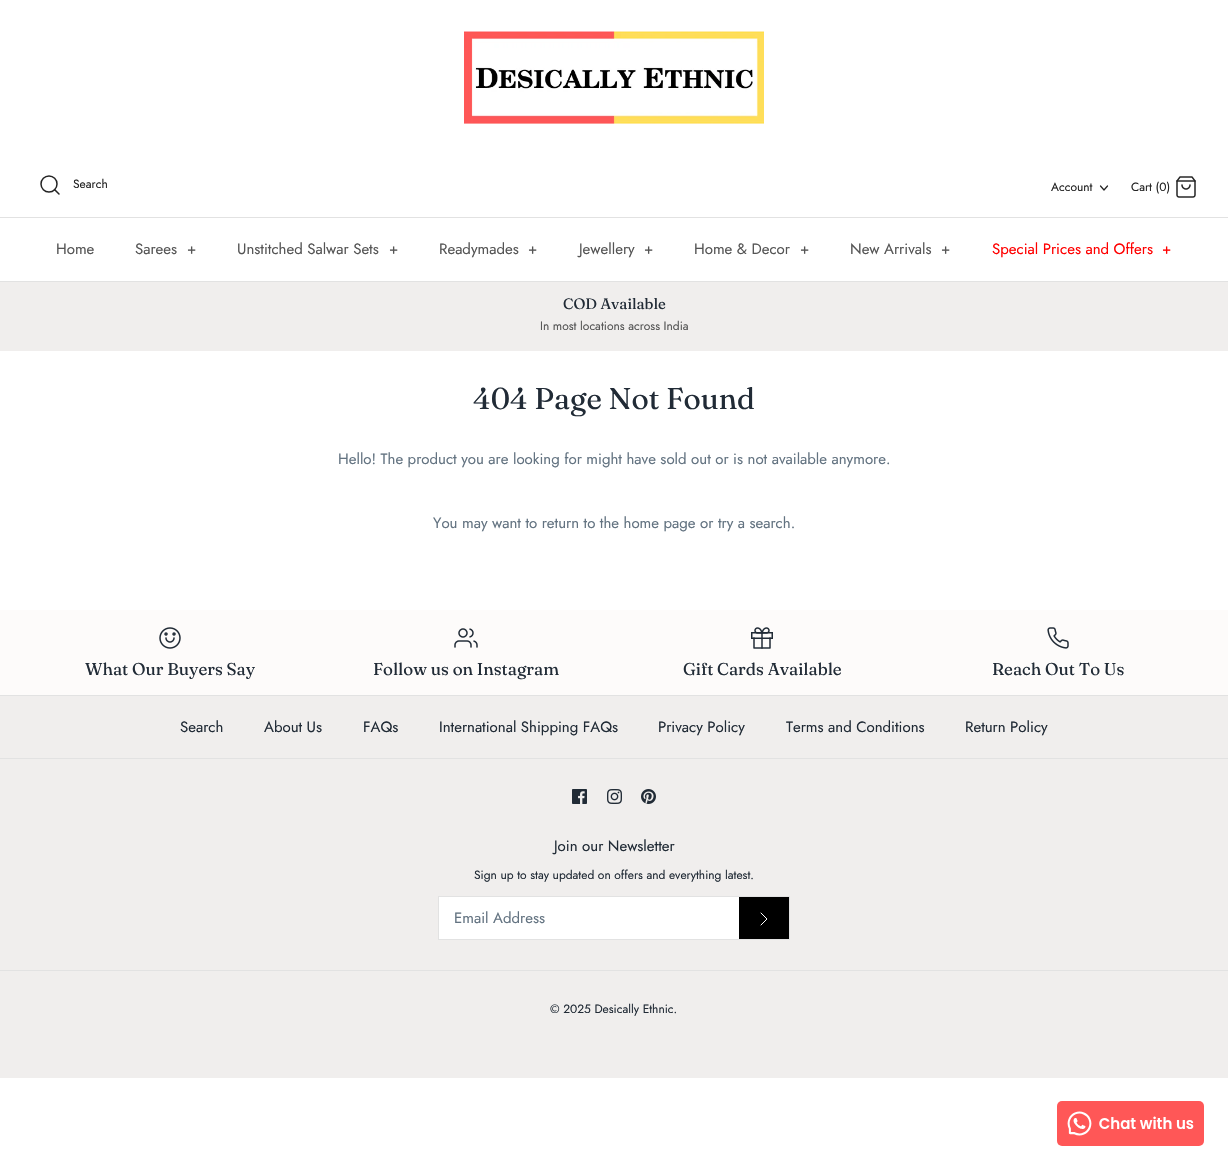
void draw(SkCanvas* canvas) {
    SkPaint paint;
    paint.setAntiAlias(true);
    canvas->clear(0xFFFFFFFF);
    canvas->drawImageRect(SkImages::DeferredFromEncodedData(SkData::MakeFromFileName("img1.png")), SkRect::MakeXYWH(464, 31, 300, 93), SkSamplingOptions());
    paint.setStyle(SkPaint::kStroke_Style);
    paint.setStrokeWidth(1.5f);
    paint.setColor(0xFF232323);
    canvas->drawCircle(49, 184, 8, paint);
    paint.setStrokeCap(SkPaint::kRound_Cap);
    paint.setStrokeJoin(SkPaint::kRound_Join);
    canvas->drawPath(SkPathBuilder().moveTo(59, 194).lineTo(54.5f, 189.5f).detach(), paint);
    SkFont font1(fontMgr->matchFamilyStyle("Jost", SkFontStyle::Normal()), 12);
    font1.setSubpixel(true);
    paint.setStyle(SkPaint::kFill_Style);
    canvas->drawString("Search", 73, 188, font1, paint);
    canvas->drawString("Account", 1051, 191, font1, paint);
    paint.setStyle(SkPaint::kStroke_Style);
    paint.setStrokeWidth(1.2f);
    canvas->drawPath(SkPathBuilder().moveTo(1100.5f, 186).lineTo(1104, 190).lineTo(1107.5f, 186).detach(), paint);
    paint.setStyle(SkPaint::kFill_Style);
    canvas->drawString("Cart (0)", 1131, 191, font1, paint);
    canvas->drawImageRect(SkImages::DeferredFromEncodedData(SkData::MakeFromFileName("img2.png")), SkRect::MakeXYWH(1176, 176, 20, 22), SkSamplingOptions());
    paint.setColor(0xFFE2E2E2);
    canvas->drawRect(SkRect::MakeXYWH(0, 281, 1228, 1), paint);
    canvas->drawRect(SkRect::MakeXYWH(0, 217, 1228, 1), paint);
    SkFont font2(fontMgr->matchFamilyStyle("Jost", SkFontStyle::Normal()), 15);
    font2.setSubpixel(true);
    paint.setColor(0xFF555555);
    canvas->drawString("Home", 56, 254, font2, paint);
    canvas->drawString("Sarees", 135, 254, font2, paint);
    canvas->drawString("+", 187, 254, font2, paint);
    canvas->drawString("Unstitched Salwar Sets", 237, 254, font2, paint);
    canvas->drawString("+", 389, 254, font2, paint);
    canvas->drawString("Readymades", 439, 254, font2, paint);
    canvas->drawString("+", 528, 254, font2, paint);
    canvas->drawString("Jewellery", 579, 254, font2, paint);
    canvas->drawString("+", 644, 254, font2, paint);
    canvas->drawString("Home & Decor", 694, 254, font2, paint);
    canvas->drawString("+", 800, 254, font2, paint);
    canvas->drawString("New Arrivals", 850, 254, font2, paint);
    canvas->drawString("+", 941, 254, font2, paint);
    paint.setColor(0xFFFF0000);
    canvas->drawString("Special Prices and Offers", 992, 254, font2, paint);
    canvas->drawString("+", 1162, 254, font2, paint);
    paint.setColor(0xFFF0EEED);
    canvas->drawRect(SkRect::MakeXYWH(0, 282, 1228, 69), paint);
    SkFont font3(fontMgr->matchFamilyStyle("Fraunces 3", SkFontStyle::Normal()), 15);
    font3.setSubpixel(true);
    paint.setColor(0xFF212B36);
    canvas->drawString("COD Available", 563, 309, font3, paint);
    paint.setColor(0xFF555555);
    canvas->drawString("In most locations across India", 540, 330, font1, paint);
    SkFont font4(fontMgr->matchFamilyStyle("Fraunces", SkFontStyle::Normal()), 30);
    font4.setSubpixel(true);
    paint.setColor(0xFF212B36);
    canvas->drawString("404 Page Not Found", 473, 409, font4, paint);
    paint.setColor(0xFF637381);
    canvas->drawString("Hello! The product you are looking for might have sold out or is not available anymore.", 338, 464, font2, paint);
    canvas->drawString("You may want to return to the home page or try a search.", 433, 528, font2, paint);
    paint.setColor(0xFFF0EEED);
    canvas->drawRect(SkRect::MakeXYWH(0, 696, 1228, 382), paint);
    paint.setColor(0xFFFDFBFA);
    canvas->drawRect(SkRect::MakeXYWH(0, 610, 1228, 85), paint);
    canvas->drawImageRect(SkImages::DeferredFromEncodedData(SkData::MakeFromFileName("img3.png")), SkRect::MakeXYWH(159, 627, 22, 22), SkSamplingOptions());
    SkFont font5(fontMgr->matchFamilyStyle("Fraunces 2", SkFontStyle::Normal()), 17);
    font5.setSubpixel(true);
    paint.setColor(0xFF212B36);
    canvas->drawString("What Our Buyers Say", 85, 675, font5, paint);
    canvas->drawImageRect(SkImages::DeferredFromEncodedData(SkData::MakeFromFileName("img4.png")), SkRect::MakeXYWH(454, 628, 24, 20), SkSamplingOptions());
    canvas->drawString("Follow us on Instagram", 373, 675, font5, paint);
    canvas->drawImageRect(SkImages::DeferredFromEncodedData(SkData::MakeFromFileName("img5.png")), SkRect::MakeXYWH(751, 627, 22, 22), SkSamplingOptions());
    canvas->drawString("Gift Cards Available", 683, 675, font5, paint);
    canvas->drawImageRect(SkImages::DeferredFromEncodedData(SkData::MakeFromFileName("img6.png")), SkRect::MakeXYWH(1047, 627, 22, 22), SkSamplingOptions());
    canvas->drawString("Reach Out To Us", 992, 675, font5, paint);
    paint.setColor(0xFFE2E2E2);
    canvas->drawRect(SkRect::MakeXYWH(0, 695, 1228, 1), paint);
    canvas->drawRect(SkRect::MakeXYWH(0, 758, 1228, 1), paint);
    paint.setColor(0xFF212B36);
    canvas->drawString("Search", 180, 732, font2, paint);
    canvas->drawString("About Us", 264, 732, font2, paint);
    canvas->drawString("FAQs", 363, 732, font2, paint);
    canvas->drawString("International Shipping FAQs", 439, 732, font2, paint);
    canvas->drawString("Privacy Policy", 658, 732, font2, paint);
    canvas->drawString("Terms and Conditions", 786, 732, font2, paint);
    canvas->drawString("Return Policy", 965, 732, font2, paint);
    canvas->drawImageRect(SkImages::DeferredFromEncodedData(SkData::MakeFromFileName("img7.png")), SkRect::MakeXYWH(572, 789, 15, 15), SkSamplingOptions());
    canvas->drawImageRect(SkImages::DeferredFromEncodedData(SkData::MakeFromFileName("img8.png")), SkRect::MakeXYWH(607, 789, 15, 15), SkSamplingOptions());
    canvas->drawImageRect(SkImages::DeferredFromEncodedData(SkData::MakeFromFileName("img9.png")), SkRect::MakeXYWH(641, 789, 15, 15), SkSamplingOptions());
    paint.setColor(0xFFE2E2E2);
    canvas->drawRect(SkRect::MakeXYWH(0, 970, 1228, 1), paint);
    paint.setColor(0xFF212B36);
    canvas->drawString("Join our Newsletter", 554, 851, font2, paint);
    canvas->drawString("Sign up to stay updated on offers and everything latest.", 474, 879, font1, paint);
    paint.setColor(0xFFFFFFFF);
    canvas->drawRect(SkRect::MakeXYWH(439, 897, 300, 42), paint);
    paint.setStyle(SkPaint::kStroke_Style);
    paint.setStrokeWidth(1);
    paint.setStrokeCap(SkPaint::kButt_Cap);
    paint.setStrokeJoin(SkPaint::kMiter_Join);
    paint.setColor(0xFFE2E2E2);
    canvas->drawRect(SkRect::MakeXYWH(438.5f, 896.5f, 351, 43), paint);
    paint.setStyle(SkPaint::kFill_Style);
    paint.setColor(0xFF637381);
    canvas->drawString("Email Address", 454, 923, font2, paint);
    paint.setColor(0xFF000000);
    canvas->drawRect(SkRect::MakeXYWH(739, 897, 50, 42), paint);
    paint.setStyle(SkPaint::kStroke_Style);
    paint.setStrokeCap(SkPaint::kRound_Cap);
    paint.setStrokeJoin(SkPaint::kRound_Join);
    paint.setColor(0xFFFFFFFF);
    canvas->drawPath(SkPathBuilder().moveTo(761, 925).lineTo(767, 919).lineTo(761, 913).detach(), paint);
    paint.setStyle(SkPaint::kFill_Style);
    paint.setColor(0xFF212B36);
    canvas->drawString("© 2025 Desically Ethnic.", 550, 1013, font1, paint);
    canvas->drawImageRect(SkImages::DeferredFromEncodedData(SkData::MakeFromFileName("img10.png")), SkRect::MakeXYWH(1057, 1101, 147, 45), SkSamplingOptions());
}
